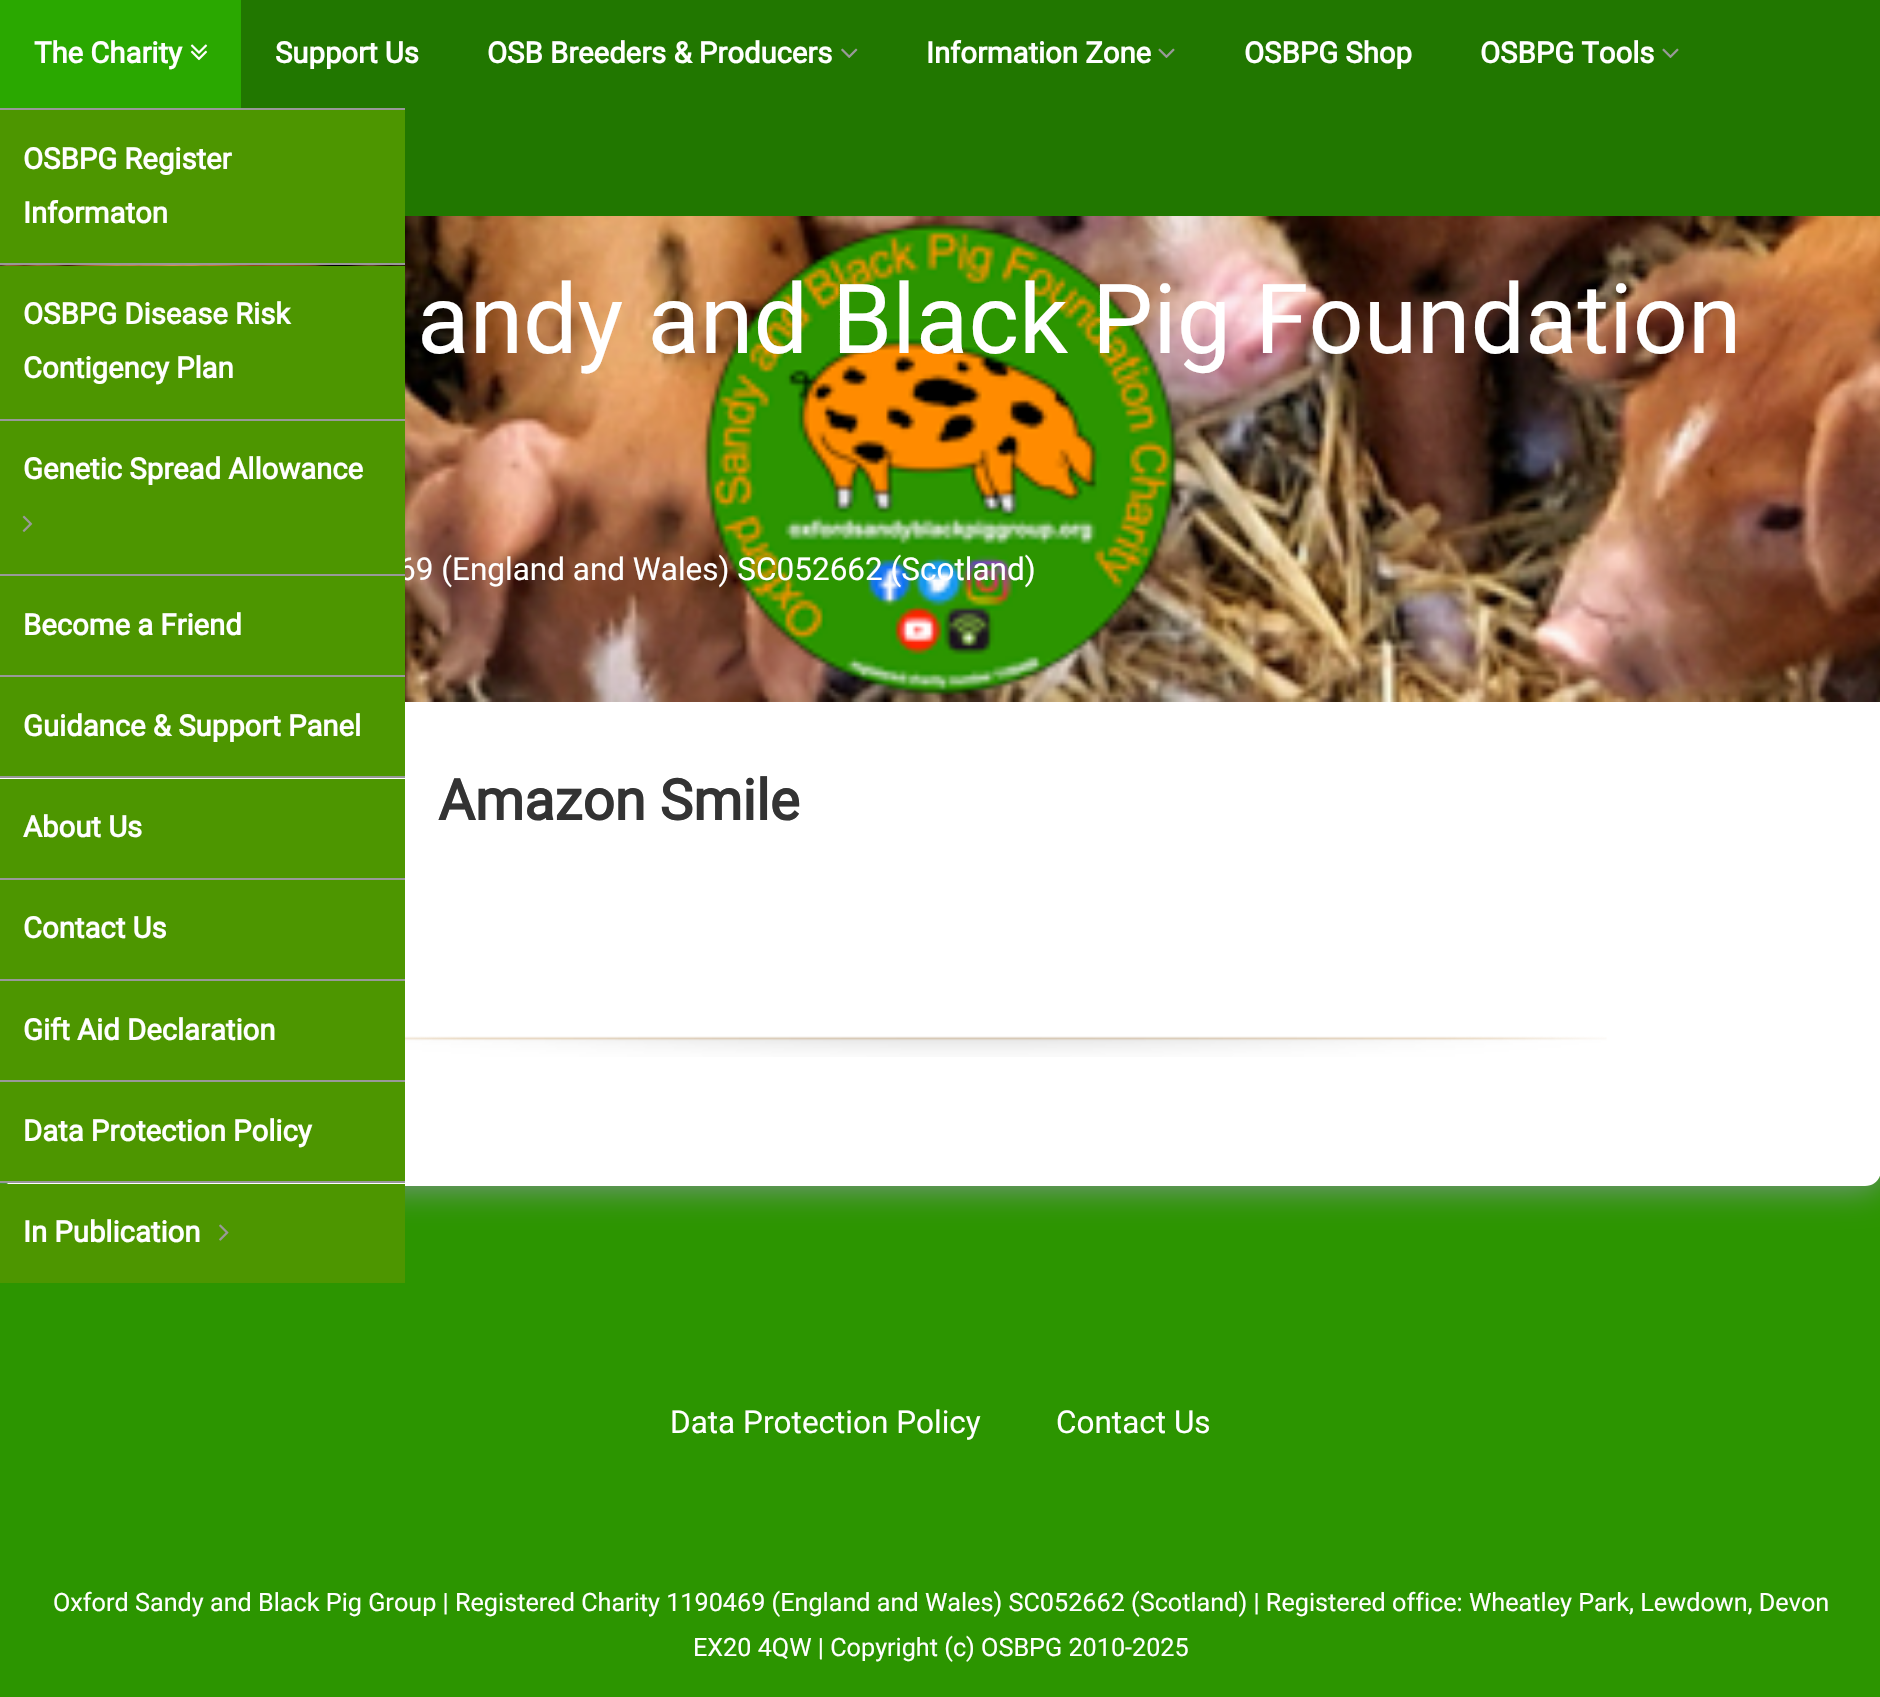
void draw(SkCanvas* canvas) {
    SkPaint paint;
    paint.setAntiAlias(true);
    canvas->clear(0xFF2C9500);
    paint.setColor(0xFF217700);
    canvas->drawRect(SkRect::MakeXYWH(241, 0, 1639, 216), paint);
    paint.setColor(0xFF2AA800);
    canvas->drawRect(SkRect::MakeXYWH(0, 0, 241, 108), paint);
    SkFont font1(fontMgr->matchFamilyStyle("Roboto", SkFontStyle::Bold()), 29.25f);
    font1.setSubpixel(true);
    paint.setColor(0xFFFFFFFF);
    canvas->drawString("The Charity", 34, 63, font1, paint);
    canvas->drawImageRect(SkImages::DeferredFromEncodedData(SkData::MakeFromFileName("img1.png")), SkRect::MakeXYWH(190, 44, 18, 17), SkSamplingOptions());
    paint.setColor(0xFF999999);
    canvas->drawRect(SkRect::MakeXYWH(0, 108, 405, 2), paint);
    paint.setColor(0xFF85969F);
    paint.setMaskFilter(SkMaskFilter::MakeBlur(kNormal_SkBlurStyle, 18));
    canvas->drawRoundRect(SkRect::MakeXYWH(0, 702, 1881, 484), 16, 16, paint);
    paint.setMaskFilter(nullptr);
    canvas->drawImageRect(SkImages::DeferredFromEncodedData(SkData::MakeFromFileName("img6.png")), SkRect::MakeXYWH(0, 216, 1880, 486), SkSamplingOptions());
    paint.setColor(0xFF4D9600);
    canvas->drawRect(SkRect::MakeXYWH(0, 110, 405, 153), paint);
    paint.setColor(0xFFFFFFFF);
    canvas->drawString("OSBPG Register", 23, 169, font1, paint);
    canvas->drawString("Informaton", 23, 223, font1, paint);
    paint.setColor(0xFF999999);
    canvas->drawRect(SkRect::MakeXYWH(0, 263, 405, 2), paint);
    paint.setColor(0xFF4D9600);
    canvas->drawRect(SkRect::MakeXYWH(0, 266, 405, 153), paint);
    paint.setColor(0xFFFFFFFF);
    canvas->drawString("OSBPG Disease Risk", 23, 324, font1, paint);
    canvas->drawString("Contigency Plan", 23, 378, font1, paint);
    paint.setColor(0xFF999999);
    canvas->drawRect(SkRect::MakeXYWH(0, 419, 405, 2), paint);
    SkFont font2(fontMgr->matchFamilyStyle("Roboto", SkFontStyle::Normal()), 31.5f);
    font2.setSubpixel(true);
    paint.setColor(0xFFFFFFFF);
    canvas->drawString("69 (England and Wales) SC052662 (Scotland)", 398, 580, font2, paint);
    paint.setColor(0xFF4D9600);
    canvas->drawRect(SkRect::MakeXYWH(0, 421, 405, 153), paint);
    paint.setColor(0xFFFFFFFF);
    canvas->drawString("Genetic Spread Allowance", 23, 479, font1, paint);
    canvas->drawImageRect(SkImages::DeferredFromEncodedData(SkData::MakeFromFileName("img2.png")), SkRect::MakeXYWH(22, 515, 11, 17), SkSamplingOptions());
    paint.setColor(0xFF999999);
    canvas->drawRect(SkRect::MakeXYWH(0, 574, 405, 2), paint);
    paint.setColor(0xFF4D9600);
    canvas->drawRect(SkRect::MakeXYWH(0, 576, 405, 99), paint);
    paint.setColor(0xFFFFFFFF);
    canvas->drawString("Become a Friend", 23, 635, font1, paint);
    paint.setColor(0xFF999999);
    canvas->drawRect(SkRect::MakeXYWH(0, 675, 405, 2), paint);
    paint.setColor(0xFFFFFFFF);
    canvas->drawPath(SkPathBuilder().moveTo(0, 702).lineTo(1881, 702).lineTo(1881, 1170).cubicTo(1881, 1179, 1874, 1186, 1865, 1186).lineTo(16, 1186).cubicTo(7, 1186, 0, 1179, 0, 1170).close().detach(), paint);
    paint.setColor(0xFF4D9600);
    canvas->drawRect(SkRect::MakeXYWH(0, 677, 405, 99), paint);
    paint.setColor(0xFFFFFFFF);
    canvas->drawString("Guidance & Support Panel", 23, 736, font1, paint);
    paint.setColor(0xFF999999);
    canvas->drawRect(SkRect::MakeXYWH(0, 776, 405, 2), paint);
    paint.setColor(0xFF4D9600);
    canvas->drawRect(SkRect::MakeXYWH(0, 779, 405, 99), paint);
    paint.setColor(0xFFFFFFFF);
    canvas->drawString("About Us", 23, 837, font1, paint);
    paint.setColor(0xFF999999);
    canvas->drawRect(SkRect::MakeXYWH(0, 878, 405, 2), paint);
    paint.setColor(0xFF4D9600);
    canvas->drawRect(SkRect::MakeXYWH(0, 880, 405, 99), paint);
    paint.setColor(0xFFFFFFFF);
    canvas->drawString("Contact Us", 23, 938, font1, paint);
    paint.setColor(0xFF999999);
    canvas->drawRect(SkRect::MakeXYWH(0, 979, 405, 2), paint);
    paint.setColor(0xFF4D9600);
    canvas->drawRect(SkRect::MakeXYWH(0, 981, 405, 99), paint);
    paint.setColor(0xFFFFFFFF);
    canvas->drawString("Gift Aid Declaration", 23, 1040, font1, paint);
    paint.setColor(0xFF999999);
    canvas->drawRect(SkRect::MakeXYWH(0, 1080, 405, 2), paint);
    paint.setColor(0xFF4D9600);
    canvas->drawRect(SkRect::MakeXYWH(0, 1082, 405, 99), paint);
    paint.setColor(0xFFFFFFFF);
    canvas->drawString("Data Protection Policy", 23, 1141, font1, paint);
    paint.setColor(0xFF999999);
    canvas->drawRect(SkRect::MakeXYWH(0, 1181, 405, 2), paint);
    paint.setColor(0xFF4D9600);
    canvas->drawRect(SkRect::MakeXYWH(0, 1184, 405, 99), paint);
    paint.setColor(0xFFFFFFFF);
    canvas->drawString("In Publication", 23, 1242, font1, paint);
    canvas->drawImageRect(SkImages::DeferredFromEncodedData(SkData::MakeFromFileName("img3.png")), SkRect::MakeXYWH(219, 1224, 10, 17), SkSamplingOptions());
    canvas->drawString("Information Zone", 926, 63, font1, paint);
    canvas->drawImageRect(SkImages::DeferredFromEncodedData(SkData::MakeFromFileName("img4.png")), SkRect::MakeXYWH(1158, 48, 17, 10), SkSamplingOptions());
    canvas->drawString("Support Us", 275, 63, font1, paint);
    canvas->drawString("OSB Breeders & Producers", 487, 63, font1, paint);
    canvas->drawImageRect(SkImages::DeferredFromEncodedData(SkData::MakeFromFileName("img5.png")), SkRect::MakeXYWH(841, 48, 17, 10), SkSamplingOptions());
    canvas->drawString("OSBPG Shop", 1244, 63, font1, paint);
    canvas->drawString("OSBPG Tools", 1480, 63, font1, paint);
    canvas->drawImageRect(SkImages::DeferredFromEncodedData(SkData::MakeFromFileName("img4.png")), SkRect::MakeXYWH(1662, 48, 17, 10), SkSamplingOptions());
    SkFont font3(fontMgr->matchFamilyStyle("Roboto", SkFontStyle::Normal()), 96.75f);
    font3.setSubpixel(true);
    canvas->drawString("andy and Black Pig Foundation", 417, 353, font3, paint);
    canvas->drawImageRect(SkImages::DeferredFromEncodedData(SkData::MakeFromFileName("img7.png")), SkRect::MakeXYWH(405, 1036, 1202, 21), SkSamplingOptions());
    SkFont font4(fontMgr->matchFamilyStyle("Roboto", SkFontStyle::Bold()), 56.25f);
    font4.setSubpixel(true);
    paint.setColor(0xFF333333);
    canvas->drawString("Amazon Smile", 438, 820, font4, paint);
    paint.setColor(0xFFFFFFFF);
    canvas->drawString("Data Protection Policy", 670, 1433, font2, paint);
    canvas->drawString("Contact Us", 1056, 1433, font2, paint);
    SkFont font5(fontMgr->matchFamilyStyle("Roboto", SkFontStyle::Normal()), 25.2f);
    font5.setSubpixel(true);
    canvas->drawString("Oxford Sandy and Black Pig Group | Registered Charity 1190469 (England and Wales) SC052662 (Scotland) | Registered office: Wheatley Park, Lewdown, Devon", 53, 1611, font5, paint);
    canvas->drawString("EX20 4QW | Copyright (c) OSBPG 2010-2025", 693, 1656, font5, paint);
}
